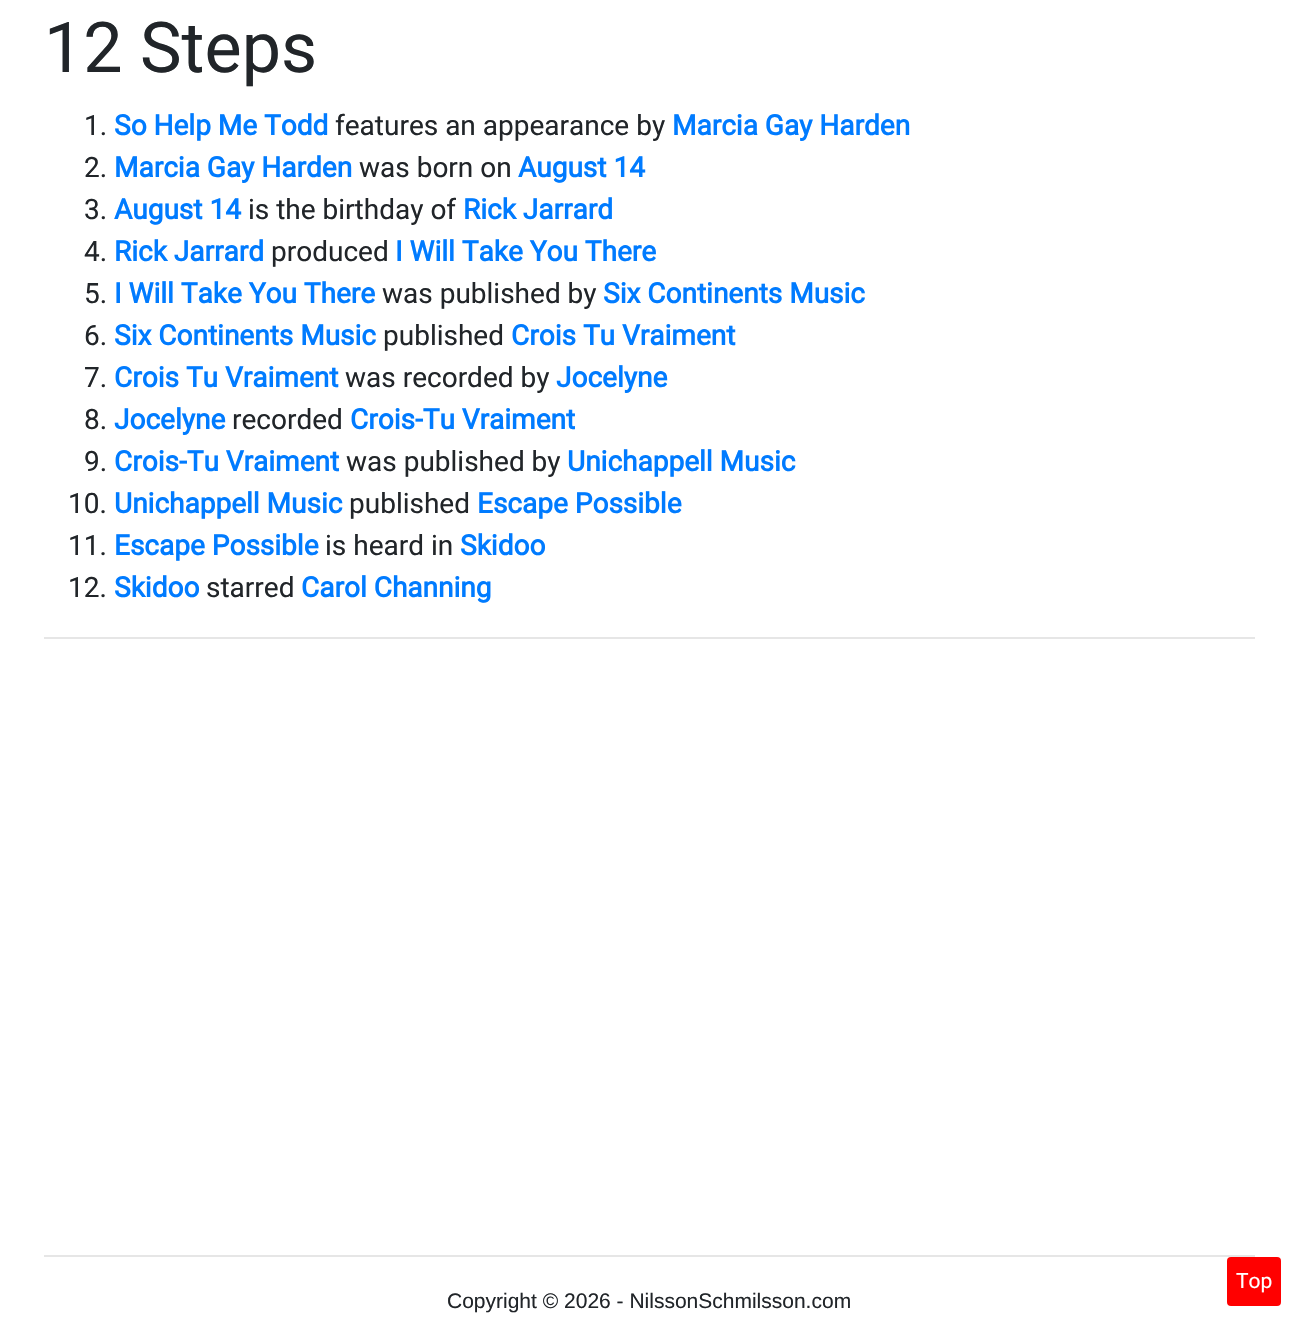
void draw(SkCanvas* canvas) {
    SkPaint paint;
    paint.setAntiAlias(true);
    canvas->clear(0xFFFFFFFF);
    SkFont font1(fontMgr->matchFamilyStyle("Roboto", SkFontStyle::Normal()), 70);
    font1.setSubpixel(true);
    paint.setColor(0xFF212529);
    canvas->drawString("12 Steps", 44, 72, font1, paint);
    SkFont font2(fontMgr->matchFamilyStyle("Roboto", SkFontStyle::Normal()), 28);
    font2.setSubpixel(true);
    canvas->drawString("1.", 84, 135, font2, paint);
    SkFont font3(fontMgr->matchFamilyStyle("Roboto", SkFontStyle::Bold()), 28);
    font3.setSubpixel(true);
    paint.setColor(0xFF007BFF);
    canvas->drawString("So Help Me Todd", 114, 135, font3, paint);
    paint.setColor(0xFF212529);
    canvas->drawString("features an appearance by", 335, 135, font2, paint);
    paint.setColor(0xFF007BFF);
    canvas->drawString("Marcia Gay Harden", 672, 135, font3, paint);
    paint.setColor(0xFF212529);
    canvas->drawString("2.", 84, 177, font2, paint);
    paint.setColor(0xFF007BFF);
    canvas->drawString("Marcia Gay Harden", 114, 177, font3, paint);
    paint.setColor(0xFF212529);
    canvas->drawString("was born on", 359, 177, font2, paint);
    paint.setColor(0xFF007BFF);
    canvas->drawString("August 14", 518, 177, font3, paint);
    paint.setColor(0xFF212529);
    canvas->drawString("3.", 84, 219, font2, paint);
    paint.setColor(0xFF007BFF);
    canvas->drawString("August 14", 114, 219, font3, paint);
    paint.setColor(0xFF212529);
    canvas->drawString("is the birthday of", 248, 219, font2, paint);
    paint.setColor(0xFF007BFF);
    canvas->drawString("Rick Jarrard", 463, 219, font3, paint);
    paint.setColor(0xFF212529);
    canvas->drawString("4.", 84, 261, font2, paint);
    paint.setColor(0xFF007BFF);
    canvas->drawString("Rick Jarrard", 114, 261, font3, paint);
    paint.setColor(0xFF212529);
    canvas->drawString("produced", 271, 261, font2, paint);
    paint.setColor(0xFF007BFF);
    canvas->drawString("I Will Take You There", 395, 261, font3, paint);
    paint.setColor(0xFF212529);
    canvas->drawString("5.", 84, 303, font2, paint);
    paint.setColor(0xFF007BFF);
    canvas->drawString("I Will Take You There", 114, 303, font3, paint);
    paint.setColor(0xFF212529);
    canvas->drawString("was published by", 382, 303, font2, paint);
    paint.setColor(0xFF007BFF);
    canvas->drawString("Six Continents Music", 603, 303, font3, paint);
    paint.setColor(0xFF212529);
    canvas->drawString("6.", 84, 345, font2, paint);
    paint.setColor(0xFF007BFF);
    canvas->drawString("Six Continents Music", 114, 345, font3, paint);
    paint.setColor(0xFF212529);
    canvas->drawString("published", 383, 345, font2, paint);
    paint.setColor(0xFF007BFF);
    canvas->drawString("Crois Tu Vraiment", 511, 345, font3, paint);
    paint.setColor(0xFF212529);
    canvas->drawString("7.", 84, 387, font2, paint);
    paint.setColor(0xFF007BFF);
    canvas->drawString("Crois Tu Vraiment", 114, 387, font3, paint);
    paint.setColor(0xFF212529);
    canvas->drawString("was recorded by", 345, 387, font2, paint);
    paint.setColor(0xFF007BFF);
    canvas->drawString("Jocelyne", 556, 387, font3, paint);
    paint.setColor(0xFF212529);
    canvas->drawString("8.", 84, 429, font2, paint);
    paint.setColor(0xFF007BFF);
    canvas->drawString("Jocelyne", 114, 429, font3, paint);
    paint.setColor(0xFF212529);
    canvas->drawString("recorded", 232, 429, font2, paint);
    paint.setColor(0xFF007BFF);
    canvas->drawString("Crois-Tu Vraiment", 350, 429, font3, paint);
    paint.setColor(0xFF212529);
    canvas->drawString("9.", 84, 471, font2, paint);
    paint.setColor(0xFF007BFF);
    canvas->drawString("Crois-Tu Vraiment", 114, 471, font3, paint);
    paint.setColor(0xFF212529);
    canvas->drawString("was published by", 346, 471, font2, paint);
    paint.setColor(0xFF007BFF);
    canvas->drawString("Unichappell Music", 567, 471, font3, paint);
    paint.setColor(0xFF212529);
    canvas->drawString("10.", 68, 513, font2, paint);
    paint.setColor(0xFF007BFF);
    canvas->drawString("Unichappell Music", 114, 513, font3, paint);
    paint.setColor(0xFF212529);
    canvas->drawString("published", 349, 513, font2, paint);
    paint.setColor(0xFF007BFF);
    canvas->drawString("Escape Possible", 477, 513, font3, paint);
    paint.setColor(0xFF212529);
    canvas->drawString("11.", 68, 555, font2, paint);
    paint.setColor(0xFF007BFF);
    canvas->drawString("Escape Possible", 114, 555, font3, paint);
    paint.setColor(0xFF212529);
    canvas->drawString("is heard in", 325, 555, font2, paint);
    paint.setColor(0xFF007BFF);
    canvas->drawString("Skidoo", 460, 555, font3, paint);
    paint.setColor(0xFF212529);
    canvas->drawString("12.", 68, 597, font2, paint);
    paint.setColor(0xFF007BFF);
    canvas->drawString("Skidoo", 114, 597, font3, paint);
    paint.setColor(0xFF212529);
    canvas->drawString("starred", 206, 597, font2, paint);
    paint.setColor(0xFF007BFF);
    canvas->drawString("Carol Channing", 301, 597, font3, paint);
    paint.setColor(0xFFE6E6E6);
    canvas->drawRect(SkRect::MakeXYWH(44, 637, 1211, 2), paint);
    canvas->drawRect(SkRect::MakeXYWH(44, 1255, 1211, 2), paint);
    SkFont font4(fontMgr->matchFamilyStyle("Liberation Sans", SkFontStyle::Normal()), 21);
    font4.setSubpixel(true);
    paint.setColor(0xFF212529);
    canvas->drawString("Copyright © 2026 - NilssonSchmilsson.com", 447, 1308, font4, paint);
    paint.setColor(0xFFFF0000);
    canvas->drawRoundRect(SkRect::MakeXYWH(1227, 1257, 54, 49), 4, 4, paint);
    SkFont font5(fontMgr->matchFamilyStyle("Roboto", SkFontStyle::Normal()), 21);
    font5.setSubpixel(true);
    paint.setColor(0xFFFFFFFF);
    canvas->drawString("Top", 1236, 1288, font5, paint);
}
